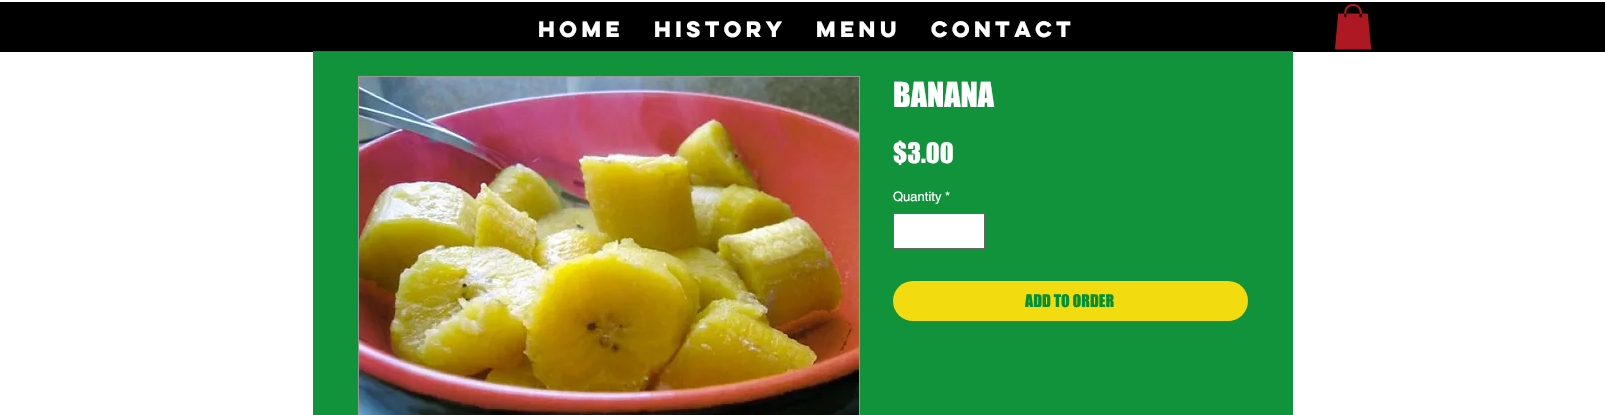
void draw(SkCanvas* canvas) {
    SkPaint paint;
    paint.setAntiAlias(true);
    canvas->clear(0xFFFFFFFF);
    paint.setColor(0xFF10933B);
    canvas->drawRect(SkRect::MakeXYWH(313, 52, 980, 363), paint);
    paint.setColor(0xFF000000);
    canvas->drawRect(SkRect::MakeXYWH(0, 2, 1605, 50), paint);
    paint.setColor(0xFF068931);
    canvas->drawRect(SkRect::MakeXYWH(313, 51, 980, 1), paint);
    canvas->drawImageRect(SkImages::DeferredFromEncodedData(SkData::MakeFromFileName("img1.png")), SkRect::MakeXYWH(1334, 4, 38, 46), SkSamplingOptions());
    SkFont font1(fontMgr->matchFamilyStyle("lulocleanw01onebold", SkFontStyle::Bold()), 20);
    font1.setSubpixel(true);
    paint.setColor(0xFFFFFFFF);
    canvas->drawString("HOME", 538, 37, font1, paint);
    canvas->drawString("HISTORY", 654, 37, font1, paint);
    canvas->drawString("MENU", 816, 37, font1, paint);
    canvas->drawString("CONTACT", 931, 37, font1, paint);
    paint.setStyle(SkPaint::kStroke_Style);
    paint.setStrokeWidth(1);
    paint.setColor(0xFF999999);
    canvas->drawRect(SkRect::MakeXYWH(358.5f, 76.5f, 501, 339), paint);
    canvas->drawImageRect(SkImages::DeferredFromEncodedData(SkData::MakeFromFileName("img2.png")), SkRect::MakeXYWH(359, 77, 500, 338), SkSamplingOptions());
    SkFont font2(fontMgr->matchFamilyStyle("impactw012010", SkFontStyle::Normal()), 32);
    font2.setSubpixel(true);
    paint.setStyle(SkPaint::kFill_Style);
    paint.setColor(0xFFFFFFFF);
    canvas->drawString("BANANA", 893, 107, font2, paint);
    SkFont font3(fontMgr->matchFamilyStyle("impactw012010", SkFontStyle::Normal()), 26);
    font3.setSubpixel(true);
    canvas->drawString("$3.00", 893, 163, font3, paint);
    SkFont font4(fontMgr->matchFamilyStyle("helvetica", SkFontStyle::Normal()), 13);
    font4.setSubpixel(true);
    canvas->drawString("Quantity", 893, 201, font4, paint);
    canvas->drawString("*", 945, 201, font4, paint);
    canvas->drawRect(SkRect::MakeXYWH(893.5f, 213.5f, 91, 35), paint);
    paint.setStyle(SkPaint::kStroke_Style);
    paint.setColor(0xFF666666);
    canvas->drawRect(SkRect::MakeXYWH(893.5f, 213.5f, 91, 35), paint);
    paint.setStyle(SkPaint::kFill_Style);
    paint.setColor(0xFFF2DB0F);
    canvas->drawRoundRect(SkRect::MakeXYWH(893, 281, 355, 40), 20, 20, paint);
    SkFont font5(fontMgr->matchFamilyStyle("impactw012010", SkFontStyle::Normal()), 16);
    font5.setSubpixel(true);
    paint.setColor(0xFF068F33);
    canvas->drawString("ADD TO ORDER", 1025, 307, font5, paint);
}
